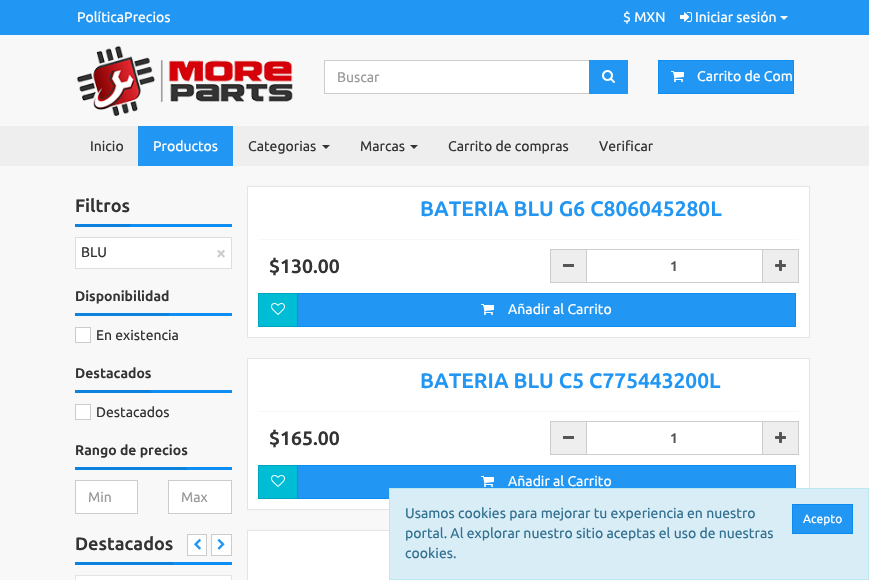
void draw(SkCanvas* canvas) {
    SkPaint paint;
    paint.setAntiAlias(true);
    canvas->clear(0xFF2196F3);
    SkFont font1(fontMgr->matchFamilyStyle("Ubuntu", SkFontStyle::Normal()), 14);
    font1.setSubpixel(true);
    paint.setColor(0xFFFFFFFF);
    canvas->drawString("PolíticaPrecios", 77, 22, font1, paint);
    canvas->drawString("$ MXN", 623, 22, font1, paint);
    canvas->drawImageRect(SkImages::DeferredFromEncodedData(SkData::MakeFromFileName("img1.png")), SkRect::MakeXYWH(680, 12, 12, 10), SkSamplingOptions());
    canvas->drawString("Iniciar sesión", 695, 22, font1, paint);
    canvas->drawPath(SkPathBuilder().moveTo(780, 16).lineTo(788, 16).lineTo(784, 20).close().detach(), paint);
    paint.setColor(0xFFF8F8F8);
    canvas->drawRect(SkRect::MakeXYWH(0, 35, 869, 91), paint);
    canvas->drawImageRect(SkImages::DeferredFromEncodedData(SkData::MakeFromFileName("img2.png")), SkRect::MakeXYWH(76, 45, 217, 71), SkSamplingOptions());
    paint.setColor(0xFFFFFFFF);
    canvas->drawRect(SkRect::MakeXYWH(325, 61, 264, 32), paint);
    paint.setStyle(SkPaint::kStroke_Style);
    paint.setStrokeWidth(1);
    paint.setColor(0xFFCCCCCC);
    canvas->drawRect(SkRect::MakeXYWH(324.5f, 60.5f, 266, 33), paint);
    paint.setStyle(SkPaint::kFill_Style);
    paint.setColor(0xFF999999);
    canvas->drawString("Buscar", 337, 82, font1, paint);
    paint.setColor(0xFF2196F3);
    canvas->drawRect(SkRect::MakeXYWH(589, 60, 39, 34), paint);
    canvas->drawImageRect(SkImages::DeferredFromEncodedData(SkData::MakeFromFileName("img3.png")), SkRect::MakeXYWH(602, 70, 13, 13), SkSamplingOptions());
    canvas->drawRect(SkRect::MakeXYWH(658.5f, 60.5f, 135, 33), paint);
    paint.setStyle(SkPaint::kStroke_Style);
    paint.setColor(0xFF0E8DF2);
    canvas->drawRect(SkRect::MakeXYWH(658.5f, 60.5f, 135, 33), paint);
    canvas->drawImageRect(SkImages::DeferredFromEncodedData(SkData::MakeFromFileName("img4.png")), SkRect::MakeXYWH(671, 71, 13, 11), SkSamplingOptions());
    paint.setStyle(SkPaint::kFill_Style);
    paint.setColor(0xFFFFFFFF);
    canvas->drawString("Carrito de Com", 697, 81, font1, paint);
    paint.setColor(0xFFEEEEEE);
    canvas->drawRect(SkRect::MakeXYWH(0, 126, 869, 40), paint);
    paint.setColor(0xFF333333);
    canvas->drawString("Inicio", 90, 151, font1, paint);
    paint.setColor(0xFF2196F3);
    canvas->drawRect(SkRect::MakeXYWH(138, 126, 95, 40), paint);
    paint.setColor(0xFFFFFFFF);
    canvas->drawString("Productos", 153, 151, font1, paint);
    paint.setColor(0xFF333333);
    canvas->drawString("Categorias", 248, 151, font1, paint);
    canvas->drawPath(SkPathBuilder().moveTo(322, 145).lineTo(330, 145).lineTo(326, 149).close().detach(), paint);
    canvas->drawString("Marcas", 360, 151, font1, paint);
    canvas->drawPath(SkPathBuilder().moveTo(410, 145).lineTo(418, 145).lineTo(414, 149).close().detach(), paint);
    canvas->drawString("Carrito de compras", 448, 151, font1, paint);
    canvas->drawString("Verificar", 599, 151, font1, paint);
    paint.setColor(0xFFF8F8F8);
    canvas->drawRect(SkRect::MakeXYWH(0, 166, 869, 414), paint);
    paint.setColor(0xFF0E8DF2);
    canvas->drawRect(SkRect::MakeXYWH(130, 224, 102, 3), paint);
    paint.setColor(0xFF0C82DF);
    canvas->drawRect(SkRect::MakeXYWH(75, 224, 55, 3), paint);
    SkFont font2(fontMgr->matchFamilyStyle("Ubuntu", SkFontStyle::Bold()), 18);
    font2.setSubpixel(true);
    paint.setColor(0xFF333333);
    canvas->drawString("Filtros", 75, 212, font2, paint);
    paint.setColor(0xFFFFFFFF);
    canvas->drawRect(SkRect::MakeXYWH(75.5f, 237.5f, 156, 31), paint);
    paint.setStyle(SkPaint::kStroke_Style);
    paint.setColor(0xFFDDDDDD);
    canvas->drawRect(SkRect::MakeXYWH(75.5f, 237.5f, 156, 31), paint);
    paint.setStyle(SkPaint::kFill_Style);
    paint.setColor(0xFF333333);
    canvas->drawString("BLU", 81, 257, font1, paint);
    paint.setColor(0xFFCCCCCC);
    canvas->drawString("×", 216, 259, font2, paint);
    paint.setColor(0xFF0E8DF2);
    canvas->drawRect(SkRect::MakeXYWH(169, 313, 63, 3), paint);
    paint.setColor(0xFF0C82DF);
    canvas->drawRect(SkRect::MakeXYWH(75, 313, 94, 3), paint);
    SkFont font3(fontMgr->matchFamilyStyle("Ubuntu", SkFontStyle::Bold()), 14);
    font3.setSubpixel(true);
    paint.setColor(0xFF333333);
    canvas->drawString("Disponibilidad", 75, 301, font3, paint);
    paint.setColor(0xFFFFFFFF);
    canvas->drawRect(SkRect::MakeXYWH(75.5f, 327.5f, 15, 15), paint);
    paint.setStyle(SkPaint::kStroke_Style);
    paint.setColor(0xFFCCCCCC);
    canvas->drawRect(SkRect::MakeXYWH(75.5f, 327.5f, 15, 15), paint);
    paint.setStyle(SkPaint::kFill_Style);
    paint.setColor(0xFF333333);
    canvas->drawString("En existencia", 96, 340, font1, paint);
    paint.setColor(0xFF0E8DF2);
    canvas->drawRect(SkRect::MakeXYWH(151, 390, 81, 3), paint);
    paint.setColor(0xFF0C82DF);
    canvas->drawRect(SkRect::MakeXYWH(75, 390, 76, 3), paint);
    paint.setColor(0xFF333333);
    canvas->drawString("Destacados", 75, 378, font3, paint);
    paint.setColor(0xFFFFFFFF);
    canvas->drawRect(SkRect::MakeXYWH(75.5f, 404.5f, 15, 15), paint);
    paint.setStyle(SkPaint::kStroke_Style);
    paint.setColor(0xFFCCCCCC);
    canvas->drawRect(SkRect::MakeXYWH(75.5f, 404.5f, 15, 15), paint);
    paint.setStyle(SkPaint::kFill_Style);
    paint.setColor(0xFF333333);
    canvas->drawString("Destacados", 96, 417, font1, paint);
    paint.setColor(0xFF0E8DF2);
    canvas->drawRect(SkRect::MakeXYWH(187, 467, 45, 3), paint);
    paint.setColor(0xFF0C82DF);
    canvas->drawRect(SkRect::MakeXYWH(75, 467, 112, 3), paint);
    paint.setColor(0xFF333333);
    canvas->drawString("Rango de precios", 75, 455, font3, paint);
    paint.setColor(0xFFFFFFFF);
    canvas->drawRect(SkRect::MakeXYWH(75.5f, 480.5f, 62, 33), paint);
    paint.setStyle(SkPaint::kStroke_Style);
    paint.setColor(0xFFCCCCCC);
    canvas->drawRect(SkRect::MakeXYWH(75.5f, 480.5f, 62, 33), paint);
    paint.setStyle(SkPaint::kFill_Style);
    paint.setColor(0xFF999999);
    canvas->drawString("Min", 88, 502, font1, paint);
    paint.setColor(0xFFFFFFFF);
    canvas->drawRect(SkRect::MakeXYWH(168.5f, 480.5f, 63, 33), paint);
    paint.setStyle(SkPaint::kStroke_Style);
    paint.setColor(0xFFCCCCCC);
    canvas->drawRect(SkRect::MakeXYWH(168.5f, 480.5f, 63, 33), paint);
    paint.setStyle(SkPaint::kFill_Style);
    paint.setColor(0xFF999999);
    canvas->drawString("Max", 181, 502, font1, paint);
    paint.setColor(0xFF0E8DF2);
    canvas->drawRect(SkRect::MakeXYWH(173, 562, 59, 3), paint);
    paint.setColor(0xFF0C82DF);
    canvas->drawRect(SkRect::MakeXYWH(75, 562, 98, 3), paint);
    paint.setColor(0xFF333333);
    canvas->drawString("Destacados", 75, 550, font2, paint);
    paint.setColor(0xFFFFFFFF);
    canvas->drawRect(SkRect::MakeXYWH(187.5f, 534.5f, 19, 21), paint);
    paint.setStyle(SkPaint::kStroke_Style);
    paint.setColor(0xFFCCCCCC);
    canvas->drawRect(SkRect::MakeXYWH(187.5f, 534.5f, 19, 21), paint);
    canvas->drawImageRect(SkImages::DeferredFromEncodedData(SkData::MakeFromFileName("img5.png")), SkRect::MakeXYWH(194, 538, 7, 12), SkSamplingOptions());
    paint.setStyle(SkPaint::kFill_Style);
    paint.setColor(0xFFFFFFFF);
    canvas->drawRect(SkRect::MakeXYWH(211.5f, 534.5f, 20, 21), paint);
    paint.setStyle(SkPaint::kStroke_Style);
    paint.setColor(0xFFCCCCCC);
    canvas->drawRect(SkRect::MakeXYWH(211.5f, 534.5f, 20, 21), paint);
    canvas->drawImageRect(SkImages::DeferredFromEncodedData(SkData::MakeFromFileName("img6.png")), SkRect::MakeXYWH(217, 538, 8, 12), SkSamplingOptions());
    paint.setStyle(SkPaint::kFill_Style);
    paint.setColor(0xFFFFFFFF);
    canvas->drawRect(SkRect::MakeXYWH(75.5f, 575.5f, 156, 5), paint);
    paint.setStyle(SkPaint::kStroke_Style);
    paint.setColor(0xFFE4E4E4);
    canvas->drawRect(SkRect::MakeXYWH(75.5f, 575.5f, 156, 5), paint);
    paint.setStyle(SkPaint::kFill_Style);
    paint.setColor(0xFFFFFFFF);
    canvas->drawRect(SkRect::MakeXYWH(247.5f, 186.5f, 562, 151), paint);
    paint.setStyle(SkPaint::kStroke_Style);
    paint.setColor(0xFFE4E4E4);
    canvas->drawRect(SkRect::MakeXYWH(247.5f, 186.5f, 562, 151), paint);
    SkFont font4(fontMgr->matchFamilyStyle("Ubuntu", SkFontStyle::Bold()), 21);
    font4.setSubpixel(true);
    paint.setStyle(SkPaint::kFill_Style);
    paint.setColor(0xFF2196F3);
    canvas->drawString("BATERIA BLU G6 C806045280L", 420, 216, font4, paint);
    paint.setColor(0xFFF8F8F8);
    canvas->drawRect(SkRect::MakeXYWH(258, 239, 541, 1), paint);
    SkFont font5(fontMgr->matchFamilyStyle("Ubuntu", SkFontStyle::Bold()), 19.5f);
    font5.setSubpixel(true);
    paint.setColor(0xFF333333);
    canvas->drawString("$130.00", 269, 273, font5, paint);
    paint.setColor(0xFFEEEEEE);
    canvas->drawRect(SkRect::MakeXYWH(551, 250, 35, 32), paint);
    paint.setColor(0xFFCCCCCC);
    canvas->drawRect(SkRect::MakeXYWH(550, 249, 36, 1), paint);
    canvas->drawRect(SkRect::MakeXYWH(550, 282, 36, 1), paint);
    canvas->drawRect(SkRect::MakeXYWH(550, 249, 1, 34), paint);
    paint.setColor(0xFF555555);
    canvas->drawRect(SkRect::MakeXYWH(563, 264, 11, 3), paint);
    paint.setStyle(SkPaint::kStroke_Style);
    paint.setColor(0xFFCCCCCC);
    canvas->drawRect(SkRect::MakeXYWH(586.5f, 249.5f, 176, 33), paint);
    paint.setStyle(SkPaint::kFill_Style);
    paint.setColor(0xFF555555);
    canvas->drawString("1", 670, 271, font3, paint);
    paint.setColor(0xFFEEEEEE);
    canvas->drawRect(SkRect::MakeXYWH(763, 250, 35, 32), paint);
    paint.setColor(0xFFCCCCCC);
    canvas->drawRect(SkRect::MakeXYWH(763, 249, 36, 1), paint);
    canvas->drawRect(SkRect::MakeXYWH(798, 249, 1, 34), paint);
    canvas->drawRect(SkRect::MakeXYWH(763, 282, 36, 1), paint);
    canvas->drawImageRect(SkImages::DeferredFromEncodedData(SkData::MakeFromFileName("img7.png")), SkRect::MakeXYWH(775, 260, 11, 11), SkSamplingOptions());
    paint.setColor(0xFF00BCD4);
    canvas->drawRect(SkRect::MakeXYWH(258.5f, 293.5f, 39, 33), paint);
    paint.setStyle(SkPaint::kStroke_Style);
    paint.setColor(0xFF00A5BB);
    canvas->drawRect(SkRect::MakeXYWH(258.5f, 293.5f, 39, 33), paint);
    canvas->drawImageRect(SkImages::DeferredFromEncodedData(SkData::MakeFromFileName("img8.png")), SkRect::MakeXYWH(271, 303, 14, 12), SkSamplingOptions());
    paint.setStyle(SkPaint::kFill_Style);
    paint.setColor(0xFF2196F3);
    canvas->drawRect(SkRect::MakeXYWH(297.5f, 293.5f, 498, 33), paint);
    paint.setStyle(SkPaint::kStroke_Style);
    paint.setColor(0xFF0E8DF2);
    canvas->drawRect(SkRect::MakeXYWH(297.5f, 293.5f, 498, 33), paint);
    canvas->drawImageRect(SkImages::DeferredFromEncodedData(SkData::MakeFromFileName("img4.png")), SkRect::MakeXYWH(481, 304, 13, 11), SkSamplingOptions());
    paint.setStyle(SkPaint::kFill_Style);
    paint.setColor(0xFFFFFFFF);
    canvas->drawString("Añadir al Carrito", 508, 314, font1, paint);
    canvas->drawRect(SkRect::MakeXYWH(247.5f, 358.5f, 562, 151), paint);
    paint.setStyle(SkPaint::kStroke_Style);
    paint.setColor(0xFFE4E4E4);
    canvas->drawRect(SkRect::MakeXYWH(247.5f, 358.5f, 562, 151), paint);
    paint.setStyle(SkPaint::kFill_Style);
    paint.setColor(0xFF2196F3);
    canvas->drawString("BATERIA BLU C5 C775443200L", 420, 388, font4, paint);
    paint.setColor(0xFFF8F8F8);
    canvas->drawRect(SkRect::MakeXYWH(258, 411, 541, 1), paint);
    paint.setColor(0xFF333333);
    canvas->drawString("$165.00", 269, 445, font5, paint);
    paint.setColor(0xFFEEEEEE);
    canvas->drawRect(SkRect::MakeXYWH(551, 422, 35, 32), paint);
    paint.setColor(0xFFCCCCCC);
    canvas->drawRect(SkRect::MakeXYWH(550, 421, 36, 1), paint);
    canvas->drawRect(SkRect::MakeXYWH(550, 454, 36, 1), paint);
    canvas->drawRect(SkRect::MakeXYWH(550, 421, 1, 34), paint);
    paint.setColor(0xFF555555);
    canvas->drawRect(SkRect::MakeXYWH(563, 436, 11, 3), paint);
    paint.setStyle(SkPaint::kStroke_Style);
    paint.setColor(0xFFCCCCCC);
    canvas->drawRect(SkRect::MakeXYWH(586.5f, 421.5f, 176, 33), paint);
    paint.setStyle(SkPaint::kFill_Style);
    paint.setColor(0xFF555555);
    canvas->drawString("1", 670, 443, font3, paint);
    paint.setColor(0xFFEEEEEE);
    canvas->drawRect(SkRect::MakeXYWH(763, 422, 35, 32), paint);
    paint.setColor(0xFFCCCCCC);
    canvas->drawRect(SkRect::MakeXYWH(763, 421, 36, 1), paint);
    canvas->drawRect(SkRect::MakeXYWH(798, 421, 1, 34), paint);
    canvas->drawRect(SkRect::MakeXYWH(763, 454, 36, 1), paint);
    canvas->drawImageRect(SkImages::DeferredFromEncodedData(SkData::MakeFromFileName("img7.png")), SkRect::MakeXYWH(775, 432, 11, 11), SkSamplingOptions());
    paint.setColor(0xFF00BCD4);
    canvas->drawRect(SkRect::MakeXYWH(258.5f, 465.5f, 39, 33), paint);
    paint.setStyle(SkPaint::kStroke_Style);
    paint.setColor(0xFF00A5BB);
    canvas->drawRect(SkRect::MakeXYWH(258.5f, 465.5f, 39, 33), paint);
    canvas->drawImageRect(SkImages::DeferredFromEncodedData(SkData::MakeFromFileName("img8.png")), SkRect::MakeXYWH(271, 475, 14, 12), SkSamplingOptions());
    paint.setStyle(SkPaint::kFill_Style);
    paint.setColor(0xFF2196F3);
    canvas->drawRect(SkRect::MakeXYWH(297.5f, 465.5f, 498, 33), paint);
    paint.setStyle(SkPaint::kStroke_Style);
    paint.setColor(0xFF0E8DF2);
    canvas->drawRect(SkRect::MakeXYWH(297.5f, 465.5f, 498, 33), paint);
    canvas->drawImageRect(SkImages::DeferredFromEncodedData(SkData::MakeFromFileName("img4.png")), SkRect::MakeXYWH(481, 476, 13, 11), SkSamplingOptions());
    paint.setStyle(SkPaint::kFill_Style);
    paint.setColor(0xFFFFFFFF);
    canvas->drawString("Añadir al Carrito", 508, 486, font1, paint);
    canvas->drawRect(SkRect::MakeXYWH(248, 531, 141, 49), paint);
    paint.setStyle(SkPaint::kStroke_Style);
    paint.setColor(0xFFE4E4E4);
    canvas->drawRect(SkRect::MakeXYWH(247.5f, 530.5f, 562, 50), paint);
    paint.setStyle(SkPaint::kFill_Style);
    paint.setColor(0xFFD9EDF7);
    canvas->drawRect(SkRect::MakeXYWH(389.5f, 488.5f, 479, 91), paint);
    paint.setStyle(SkPaint::kStroke_Style);
    paint.setColor(0xFFBCE8F1);
    canvas->drawRect(SkRect::MakeXYWH(389.5f, 488.5f, 479, 91), paint);
    paint.setStyle(SkPaint::kFill_Style);
    paint.setColor(0xFF31708F);
    canvas->drawString("Usamos cookies para mejorar tu experiencia en nuestro", 405, 518, font1, paint);
    canvas->drawString("portal. Al explorar nuestro sitio aceptas el uso de nuestras", 405, 538, font1, paint);
    canvas->drawString("cookies.", 405, 558, font1, paint);
    paint.setColor(0xFF2196F3);
    canvas->drawRect(SkRect::MakeXYWH(792.5f, 504.5f, 60, 29), paint);
    paint.setStyle(SkPaint::kStroke_Style);
    paint.setColor(0xFF0D8AEE);
    canvas->drawRect(SkRect::MakeXYWH(792.5f, 504.5f, 60, 29), paint);
    SkFont font6(fontMgr->matchFamilyStyle("Ubuntu", SkFontStyle::Normal()), 12);
    font6.setSubpixel(true);
    paint.setStyle(SkPaint::kFill_Style);
    paint.setColor(0xFFFFFFFF);
    canvas->drawString("Acepto", 803, 523, font6, paint);
}
